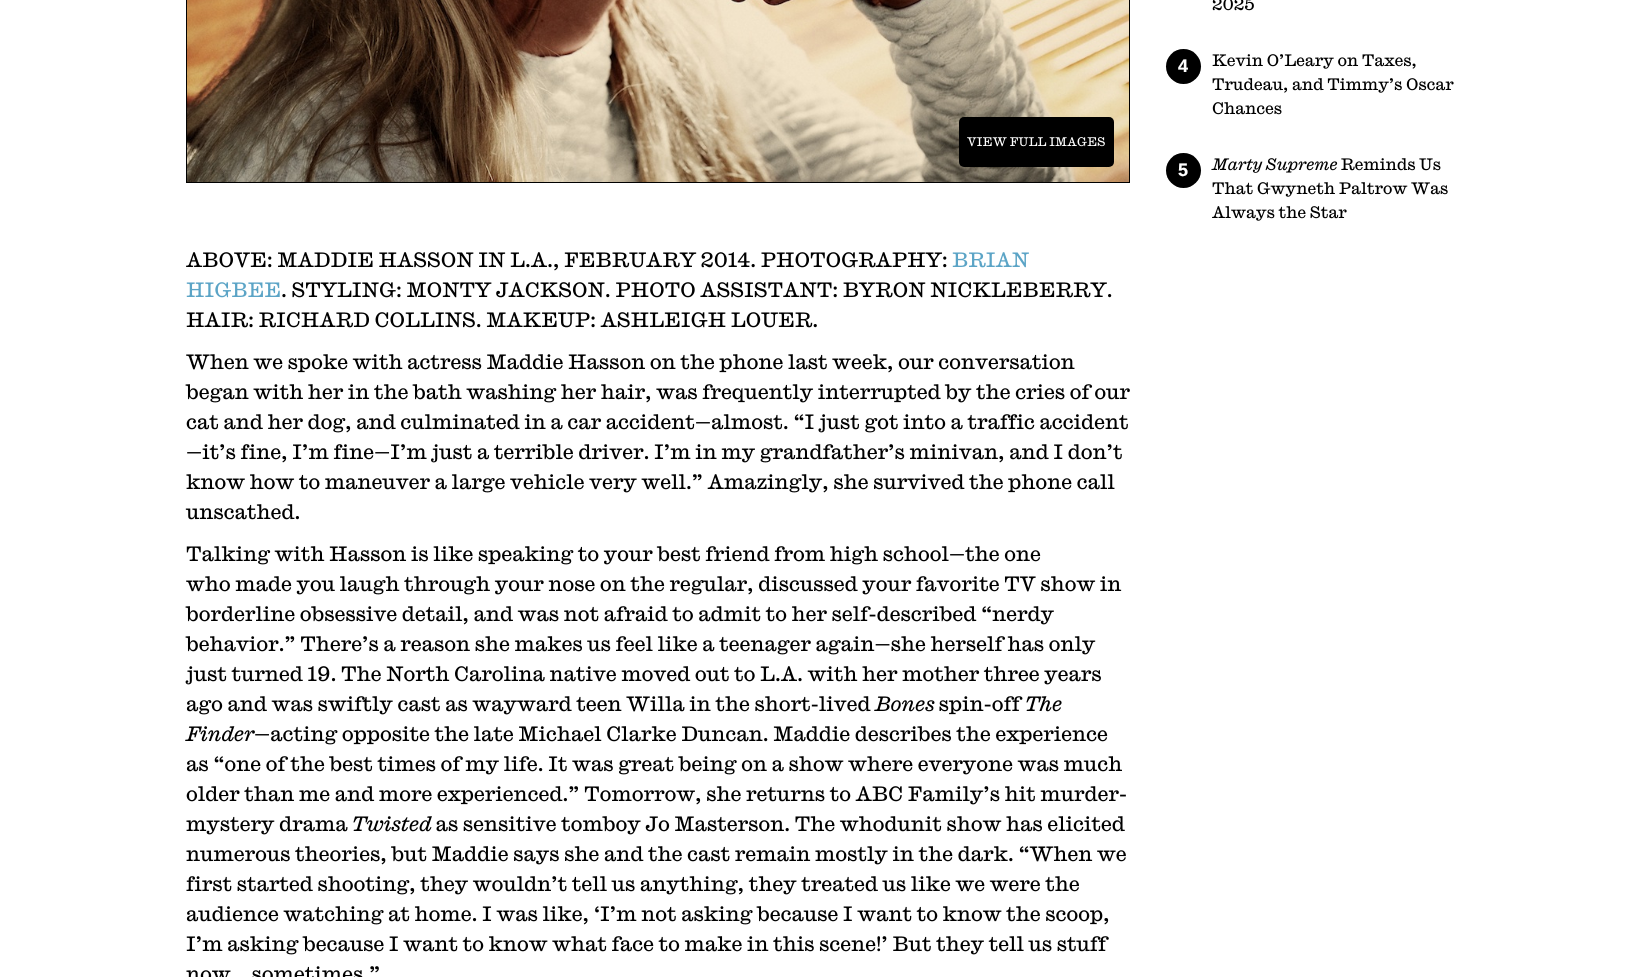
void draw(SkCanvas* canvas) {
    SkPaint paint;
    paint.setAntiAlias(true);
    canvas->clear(0xFFFFFFFF);
    paint.setStyle(SkPaint::kStroke_Style);
    paint.setStrokeWidth(1);
    paint.setColor(0xFF000000);
    canvas->drawRect(SkRect::MakeXYWH(186.5f, -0.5f, 943, 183), paint);
    canvas->drawImageRect(SkImages::DeferredFromEncodedData(SkData::MakeFromFileName("img1.png")), SkRect::MakeXYWH(187, 0, 942, 182), SkSamplingOptions());
    paint.setStyle(SkPaint::kFill_Style);
    canvas->drawRoundRect(SkRect::MakeXYWH(959, 117, 155, 50), 5, 5, paint);
    canvas->drawImageRect(SkImages::DeferredFromEncodedData(SkData::MakeFromFileName("img2.png")), SkRect::MakeXYWH(967, 137, 138, 10), SkSamplingOptions());
    canvas->drawImageRect(SkImages::DeferredFromEncodedData(SkData::MakeFromFileName("img3.png")), SkRect::MakeXYWH(186, 252, 761, 19), SkSamplingOptions());
    canvas->drawImageRect(SkImages::DeferredFromEncodedData(SkData::MakeFromFileName("img4.png")), SkRect::MakeXYWH(952, 252, 77, 16), SkSamplingOptions());
    canvas->drawImageRect(SkImages::DeferredFromEncodedData(SkData::MakeFromFileName("img5.png")), SkRect::MakeXYWH(186, 282, 94, 16), SkSamplingOptions());
    canvas->drawImageRect(SkImages::DeferredFromEncodedData(SkData::MakeFromFileName("img6.png")), SkRect::MakeXYWH(282, 282, 830, 16), SkSamplingOptions());
    canvas->drawImageRect(SkImages::DeferredFromEncodedData(SkData::MakeFromFileName("img7.png")), SkRect::MakeXYWH(186, 312, 631, 16), SkSamplingOptions());
    canvas->drawImageRect(SkImages::DeferredFromEncodedData(SkData::MakeFromFileName("img8.png")), SkRect::MakeXYWH(186, 354, 889, 19), SkSamplingOptions());
    canvas->drawImageRect(SkImages::DeferredFromEncodedData(SkData::MakeFromFileName("img9.png")), SkRect::MakeXYWH(185, 384, 945, 19), SkSamplingOptions());
    canvas->drawImageRect(SkImages::DeferredFromEncodedData(SkData::MakeFromFileName("img10.png")), SkRect::MakeXYWH(186, 414, 942, 19), SkSamplingOptions());
    canvas->drawImageRect(SkImages::DeferredFromEncodedData(SkData::MakeFromFileName("img11.png")), SkRect::MakeXYWH(187, 444, 935, 19), SkSamplingOptions());
    canvas->drawImageRect(SkImages::DeferredFromEncodedData(SkData::MakeFromFileName("img12.png")), SkRect::MakeXYWH(186, 474, 929, 19), SkSamplingOptions());
    canvas->drawImageRect(SkImages::DeferredFromEncodedData(SkData::MakeFromFileName("img13.png")), SkRect::MakeXYWH(185, 504, 114, 16), SkSamplingOptions());
    canvas->drawImageRect(SkImages::DeferredFromEncodedData(SkData::MakeFromFileName("img14.png")), SkRect::MakeXYWH(186, 546, 855, 19), SkSamplingOptions());
    canvas->drawImageRect(SkImages::DeferredFromEncodedData(SkData::MakeFromFileName("img15.png")), SkRect::MakeXYWH(186, 576, 936, 19), SkSamplingOptions());
    canvas->drawImageRect(SkImages::DeferredFromEncodedData(SkData::MakeFromFileName("img16.png")), SkRect::MakeXYWH(185, 606, 869, 19), SkSamplingOptions());
    canvas->drawImageRect(SkImages::DeferredFromEncodedData(SkData::MakeFromFileName("img17.png")), SkRect::MakeXYWH(185, 636, 911, 19), SkSamplingOptions());
    canvas->drawImageRect(SkImages::DeferredFromEncodedData(SkData::MakeFromFileName("img18.png")), SkRect::MakeXYWH(185, 666, 916, 19), SkSamplingOptions());
    canvas->drawImageRect(SkImages::DeferredFromEncodedData(SkData::MakeFromFileName("img19.png")), SkRect::MakeXYWH(186, 696, 685, 19), SkSamplingOptions());
    canvas->drawImageRect(SkImages::DeferredFromEncodedData(SkData::MakeFromFileName("img20.png")), SkRect::MakeXYWH(874, 696, 61, 16), SkSamplingOptions());
    canvas->drawImageRect(SkImages::DeferredFromEncodedData(SkData::MakeFromFileName("img21.png")), SkRect::MakeXYWH(939, 696, 84, 19), SkSamplingOptions());
    canvas->drawImageRect(SkImages::DeferredFromEncodedData(SkData::MakeFromFileName("img22.png")), SkRect::MakeXYWH(1026, 696, 36, 16), SkSamplingOptions());
    canvas->drawImageRect(SkImages::DeferredFromEncodedData(SkData::MakeFromFileName("img23.png")), SkRect::MakeXYWH(185, 726, 70, 16), SkSamplingOptions());
    canvas->drawImageRect(SkImages::DeferredFromEncodedData(SkData::MakeFromFileName("img24.png")), SkRect::MakeXYWH(255, 726, 853, 19), SkSamplingOptions());
    canvas->drawImageRect(SkImages::DeferredFromEncodedData(SkData::MakeFromFileName("img25.png")), SkRect::MakeXYWH(186, 756, 936, 19), SkSamplingOptions());
    canvas->drawImageRect(SkImages::DeferredFromEncodedData(SkData::MakeFromFileName("img26.png")), SkRect::MakeXYWH(186, 786, 940, 19), SkSamplingOptions());
    canvas->drawImageRect(SkImages::DeferredFromEncodedData(SkData::MakeFromFileName("img27.png")), SkRect::MakeXYWH(186, 816, 162, 19), SkSamplingOptions());
    canvas->drawImageRect(SkImages::DeferredFromEncodedData(SkData::MakeFromFileName("img28.png")), SkRect::MakeXYWH(353, 816, 79, 16), SkSamplingOptions());
    canvas->drawImageRect(SkImages::DeferredFromEncodedData(SkData::MakeFromFileName("img29.png")), SkRect::MakeXYWH(436, 816, 689, 19), SkSamplingOptions());
    canvas->drawImageRect(SkImages::DeferredFromEncodedData(SkData::MakeFromFileName("img30.png")), SkRect::MakeXYWH(186, 846, 940, 19), SkSamplingOptions());
    canvas->drawImageRect(SkImages::DeferredFromEncodedData(SkData::MakeFromFileName("img31.png")), SkRect::MakeXYWH(186, 876, 893, 19), SkSamplingOptions());
    canvas->drawImageRect(SkImages::DeferredFromEncodedData(SkData::MakeFromFileName("img32.png")), SkRect::MakeXYWH(186, 906, 923, 19), SkSamplingOptions());
    canvas->drawImageRect(SkImages::DeferredFromEncodedData(SkData::MakeFromFileName("img33.png")), SkRect::MakeXYWH(186, 936, 923, 19), SkSamplingOptions());
    canvas->drawImageRect(SkImages::DeferredFromEncodedData(SkData::MakeFromFileName("img34.png")), SkRect::MakeXYWH(186, 966, 193, 11), SkSamplingOptions());
    canvas->drawImageRect(SkImages::DeferredFromEncodedData(SkData::MakeFromFileName("img35.png")), SkRect::MakeXYWH(1212, 0, 42, 11), SkSamplingOptions());
    canvas->drawCircle(1183.5f, 66.5f, 17.5f, paint);
    SkFont font1(fontMgr->matchFamilyStyle("Liberation Sans", SkFontStyle::Bold()), 18);
    font1.setSubpixel(true);
    paint.setColor(0xFFFFFFFF);
    canvas->drawString("4", 1178, 72, font1, paint);
    canvas->drawImageRect(SkImages::DeferredFromEncodedData(SkData::MakeFromFileName("img36.png")), SkRect::MakeXYWH(1212, 54, 204, 15), SkSamplingOptions());
    canvas->drawImageRect(SkImages::DeferredFromEncodedData(SkData::MakeFromFileName("img37.png")), SkRect::MakeXYWH(1212, 78, 242, 15), SkSamplingOptions());
    canvas->drawImageRect(SkImages::DeferredFromEncodedData(SkData::MakeFromFileName("img38.png")), SkRect::MakeXYWH(1212, 102, 70, 13), SkSamplingOptions());
    paint.setColor(0xFF000000);
    canvas->drawCircle(1183.5f, 170.5f, 17.5f, paint);
    paint.setColor(0xFFFFFFFF);
    canvas->drawString("5", 1178, 176, font1, paint);
    canvas->drawImageRect(SkImages::DeferredFromEncodedData(SkData::MakeFromFileName("img39.png")), SkRect::MakeXYWH(1211, 158, 127, 15), SkSamplingOptions());
    canvas->drawImageRect(SkImages::DeferredFromEncodedData(SkData::MakeFromFileName("img40.png")), SkRect::MakeXYWH(1341, 158, 100, 13), SkSamplingOptions());
    canvas->drawImageRect(SkImages::DeferredFromEncodedData(SkData::MakeFromFileName("img41.png")), SkRect::MakeXYWH(1212, 182, 236, 15), SkSamplingOptions());
    canvas->drawImageRect(SkImages::DeferredFromEncodedData(SkData::MakeFromFileName("img42.png")), SkRect::MakeXYWH(1212, 206, 135, 15), SkSamplingOptions());
}
